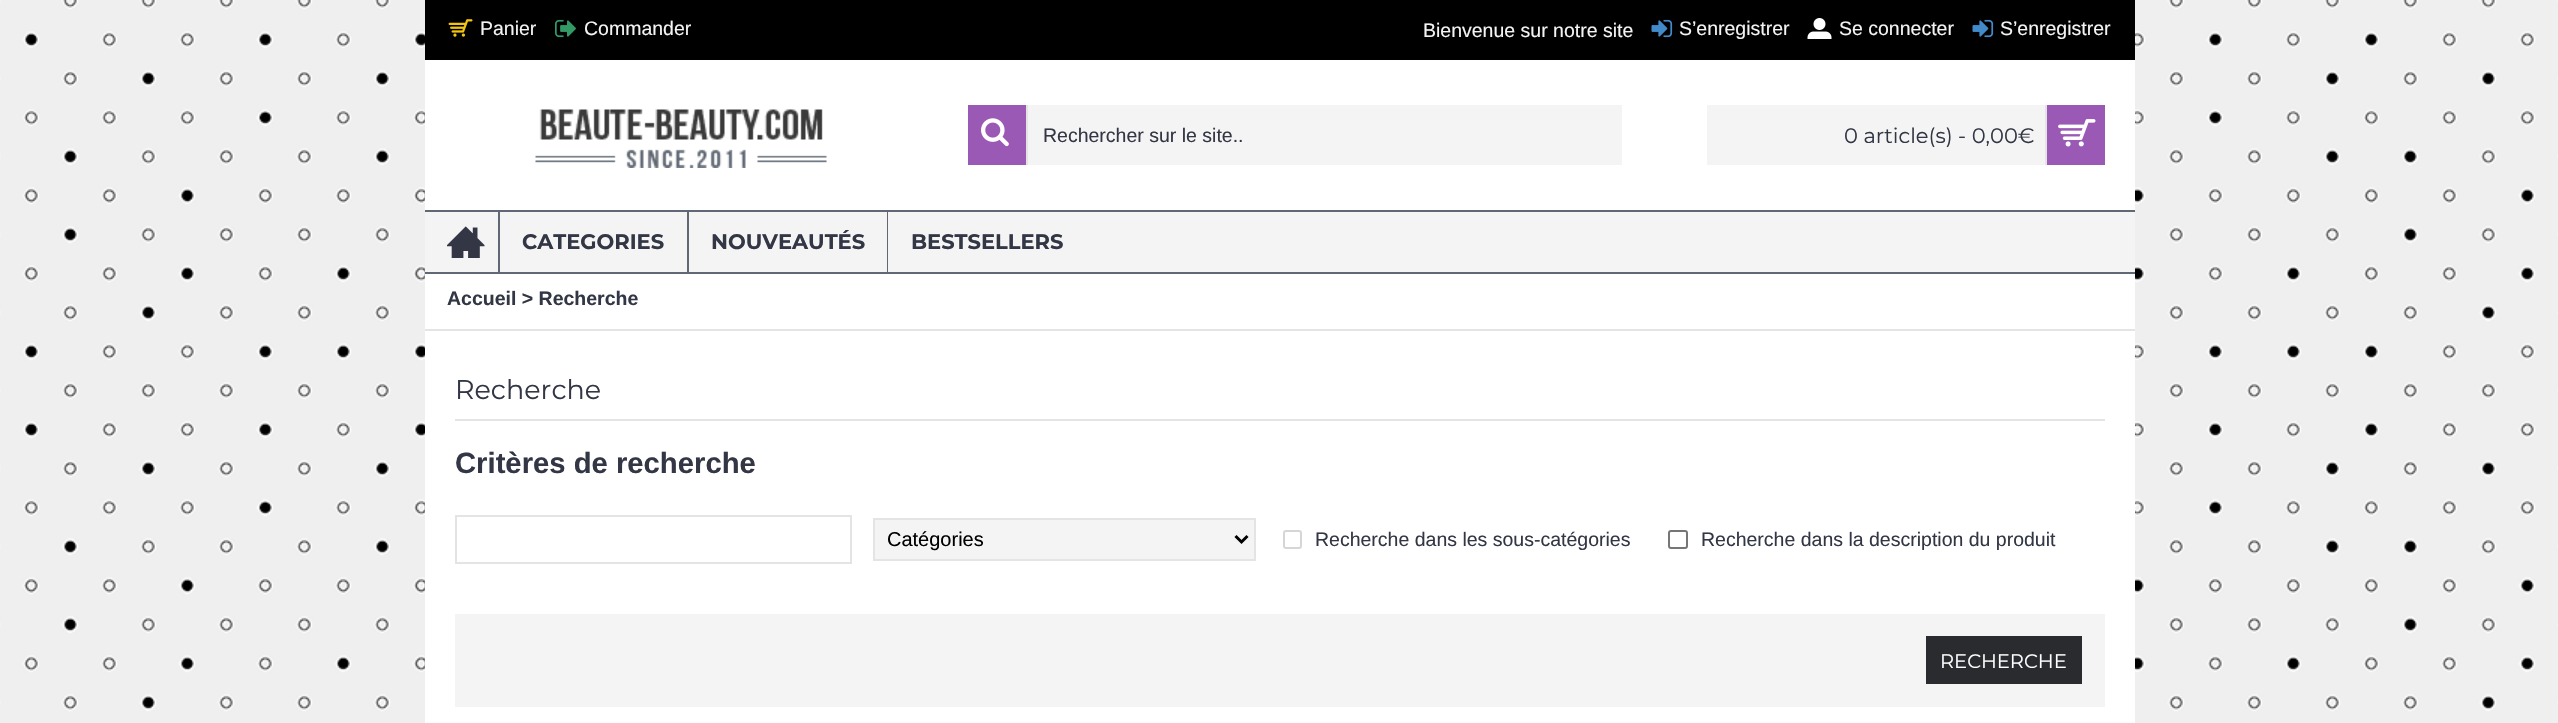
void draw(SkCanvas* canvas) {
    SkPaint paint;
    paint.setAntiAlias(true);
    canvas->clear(0xFFFFFFFF);
    canvas->drawImageRect(SkImages::DeferredFromEncodedData(SkData::MakeFromFileName("img1.png")), SkRect::MakeXYWH(0, 0, 2558, 723), SkSamplingOptions());
    paint.setColor(0xFF000000);
    canvas->drawRect(SkRect::MakeXYWH(425, 0, 1710, 60), paint);
    canvas->drawImageRect(SkImages::DeferredFromEncodedData(SkData::MakeFromFileName("img2.png")), SkRect::MakeXYWH(448, 19, 25, 18), SkSamplingOptions());
    SkFont font1(fontMgr->matchFamilyStyle("Liberation Sans", SkFontStyle::Normal()), 19.5f);
    font1.setSubpixel(true);
    paint.setColor(0xFFF4F4F4);
    canvas->drawString("Panier", 480, 35, font1, paint);
    canvas->drawImageRect(SkImages::DeferredFromEncodedData(SkData::MakeFromFileName("img3.png")), SkRect::MakeXYWH(555, 19, 21, 19), SkSamplingOptions());
    canvas->drawString("Commander", 584, 35, font1, paint);
    canvas->drawString("Bienvenue sur notre site", 1423, 37, font1, paint);
    canvas->drawImageRect(SkImages::DeferredFromEncodedData(SkData::MakeFromFileName("img4.png")), SkRect::MakeXYWH(1651, 19, 22, 19), SkSamplingOptions());
    canvas->drawString("S’enregistrer", 1679, 35, font1, paint);
    canvas->drawImageRect(SkImages::DeferredFromEncodedData(SkData::MakeFromFileName("img5.png")), SkRect::MakeXYWH(1807, 18, 25, 21), SkSamplingOptions());
    canvas->drawString("Se connecter", 1839, 35, font1, paint);
    canvas->drawImageRect(SkImages::DeferredFromEncodedData(SkData::MakeFromFileName("img4.png")), SkRect::MakeXYWH(1972, 19, 22, 19), SkSamplingOptions());
    canvas->drawString("S’enregistrer", 2000, 35, font1, paint);
    paint.setColor(0xFFFFFFFF);
    canvas->drawRect(SkRect::MakeXYWH(425, 60, 1710, 150), paint);
    canvas->drawImageRect(SkImages::DeferredFromEncodedData(SkData::MakeFromFileName("img6.png")), SkRect::MakeXYWH(535, 109, 292, 59), SkSamplingOptions());
    paint.setColor(0xFF9B59B6);
    canvas->drawRect(SkRect::MakeXYWH(968, 105, 58, 60), paint);
    paint.setColor(0xFFE4E4E4);
    canvas->drawRect(SkRect::MakeXYWH(1026, 105, 2, 60), paint);
    canvas->drawImageRect(SkImages::DeferredFromEncodedData(SkData::MakeFromFileName("img7.png")), SkRect::MakeXYWH(981, 118, 28, 29), SkSamplingOptions());
    paint.setColor(0xFFF4F4F4);
    canvas->drawRect(SkRect::MakeXYWH(1028, 105, 594, 60), paint);
    paint.setColor(0xFF333745);
    canvas->drawString("Rechercher sur le site..", 1043, 142, font1, paint);
    paint.setColor(0xFFF4F4F4);
    canvas->drawRect(SkRect::MakeXYWH(1707, 105, 338, 60), paint);
    SkFont font2(fontMgr->matchFamilyStyle("Montserrat", SkFontStyle::Normal()), 21);
    font2.setSubpixel(true);
    paint.setColor(0xFF333745);
    canvas->drawString("0 article(s) - 0,00€", 1844, 143, font2, paint);
    paint.setColor(0xFF9B59B6);
    canvas->drawRect(SkRect::MakeXYWH(2047, 105, 58, 60), paint);
    paint.setColor(0xFFE4E4E4);
    canvas->drawRect(SkRect::MakeXYWH(2045, 105, 2, 60), paint);
    canvas->drawImageRect(SkImages::DeferredFromEncodedData(SkData::MakeFromFileName("img8.png")), SkRect::MakeXYWH(2058, 119, 38, 28), SkSamplingOptions());
    paint.setColor(0xFFF4F4F4);
    canvas->drawRect(SkRect::MakeXYWH(425, 212, 1710, 60), paint);
    paint.setColor(0xFF5F6874);
    canvas->drawRect(SkRect::MakeXYWH(425, 210, 1710, 2), paint);
    canvas->drawRect(SkRect::MakeXYWH(425, 272, 1710, 2), paint);
    canvas->drawRect(SkRect::MakeXYWH(498, 212, 2, 60), paint);
    canvas->drawImageRect(SkImages::DeferredFromEncodedData(SkData::MakeFromFileName("img9.png")), SkRect::MakeXYWH(447, 226, 38, 32), SkSamplingOptions());
    canvas->drawRect(SkRect::MakeXYWH(687, 212, 2, 60), paint);
    SkFont font3(fontMgr->matchFamilyStyle("Montserrat", SkFontStyle::Bold()), 21);
    font3.setSubpixel(true);
    paint.setColor(0xFF333745);
    canvas->drawString("CATEGORIES", 522, 249, font3, paint);
    paint.setColor(0xFF5F6874);
    canvas->drawRect(SkRect::MakeXYWH(887, 212, 1, 60), paint);
    paint.setColor(0xFF333745);
    canvas->drawString("NOUVEAUTÉS", 711, 249, font3, paint);
    canvas->drawString("BESTSELLERS", 911, 249, font3, paint);
    paint.setColor(0xFFFFFFFF);
    canvas->drawRect(SkRect::MakeXYWH(425, 274, 1710, 449), paint);
    paint.setColor(0xFFE4E4E4);
    canvas->drawRect(SkRect::MakeXYWH(425, 329, 1710, 2), paint);
    SkFont font4(fontMgr->matchFamilyStyle("Liberation Sans", SkFontStyle::Bold()), 19.5f);
    font4.setSubpixel(true);
    paint.setColor(0xFF333745);
    canvas->drawString("Accueil > Recherche", 447, 305, font4, paint);
    paint.setColor(0xFFE4E4E4);
    canvas->drawRect(SkRect::MakeXYWH(455, 419, 1650, 2), paint);
    SkFont font5(fontMgr->matchFamilyStyle("Montserrat", SkFontStyle::Normal()), 27);
    font5.setSubpixel(true);
    paint.setColor(0xFF333745);
    canvas->drawString("Recherche", 455, 399, font5, paint);
    SkFont font6(fontMgr->matchFamilyStyle("Liberation Sans", SkFontStyle::Bold()), 29.25f);
    font6.setSubpixel(true);
    canvas->drawString("Critères de recherche", 455, 473, font6, paint);
    paint.setStyle(SkPaint::kStroke_Style);
    paint.setStrokeWidth(2);
    paint.setColor(0xFFE4E4E4);
    canvas->drawRect(SkRect::MakeXYWH(456, 516, 395, 47), paint);
    paint.setStyle(SkPaint::kFill_Style);
    paint.setColor(0xFFF4F4F4);
    canvas->drawRect(SkRect::MakeXYWH(874, 519, 381, 41), paint);
    paint.setStyle(SkPaint::kStroke_Style);
    paint.setColor(0xFFE4E4E4);
    canvas->drawRect(SkRect::MakeXYWH(874, 519, 381, 41), paint);
    paint.setStrokeWidth(3);
    paint.setColor(0xFF000000);
    canvas->drawPath(SkPathBuilder().moveTo(1235.5f, 536).lineTo(1241.5f, 542).lineTo(1247.5f, 536).detach(), paint);
    SkFont font7(fontMgr->matchFamilyStyle("Liberation Sans", SkFontStyle::Normal()), 20);
    font7.setSubpixel(true);
    paint.setStyle(SkPaint::kFill_Style);
    canvas->drawString("Catégories", 887, 546, font7, paint);
    paint.setStyle(SkPaint::kStroke_Style);
    paint.setStrokeWidth(2);
    paint.setColor(0xFFD6D6D6);
    canvas->drawRoundRect(SkRect::MakeXYWH(1284, 531, 17, 17), 2, 2, paint);
    paint.setStyle(SkPaint::kFill_Style);
    paint.setColor(0xFF333745);
    canvas->drawString("Recherche dans les sous-catégories", 1315, 546, font1, paint);
    paint.setStyle(SkPaint::kStroke_Style);
    paint.setColor(0xFF767676);
    canvas->drawRoundRect(SkRect::MakeXYWH(1669, 531, 18, 17), 2, 2, paint);
    paint.setStyle(SkPaint::kFill_Style);
    paint.setColor(0xFF333745);
    canvas->drawString("Recherche dans la description du produit", 1701, 546, font1, paint);
    paint.setColor(0xFFF4F4F4);
    canvas->drawRect(SkRect::MakeXYWH(455, 614, 1650, 93), paint);
    paint.setColor(0xFF2A2B2E);
    canvas->drawRect(SkRect::MakeXYWH(1926, 636, 156, 48), paint);
    SkFont font8(fontMgr->matchFamilyStyle("Montserrat", SkFontStyle::Normal()), 19.5f);
    font8.setSubpixel(true);
    paint.setColor(0xFFFFFFFF);
    canvas->drawString("RECHERCHE", 1940, 668, font8, paint);
}
